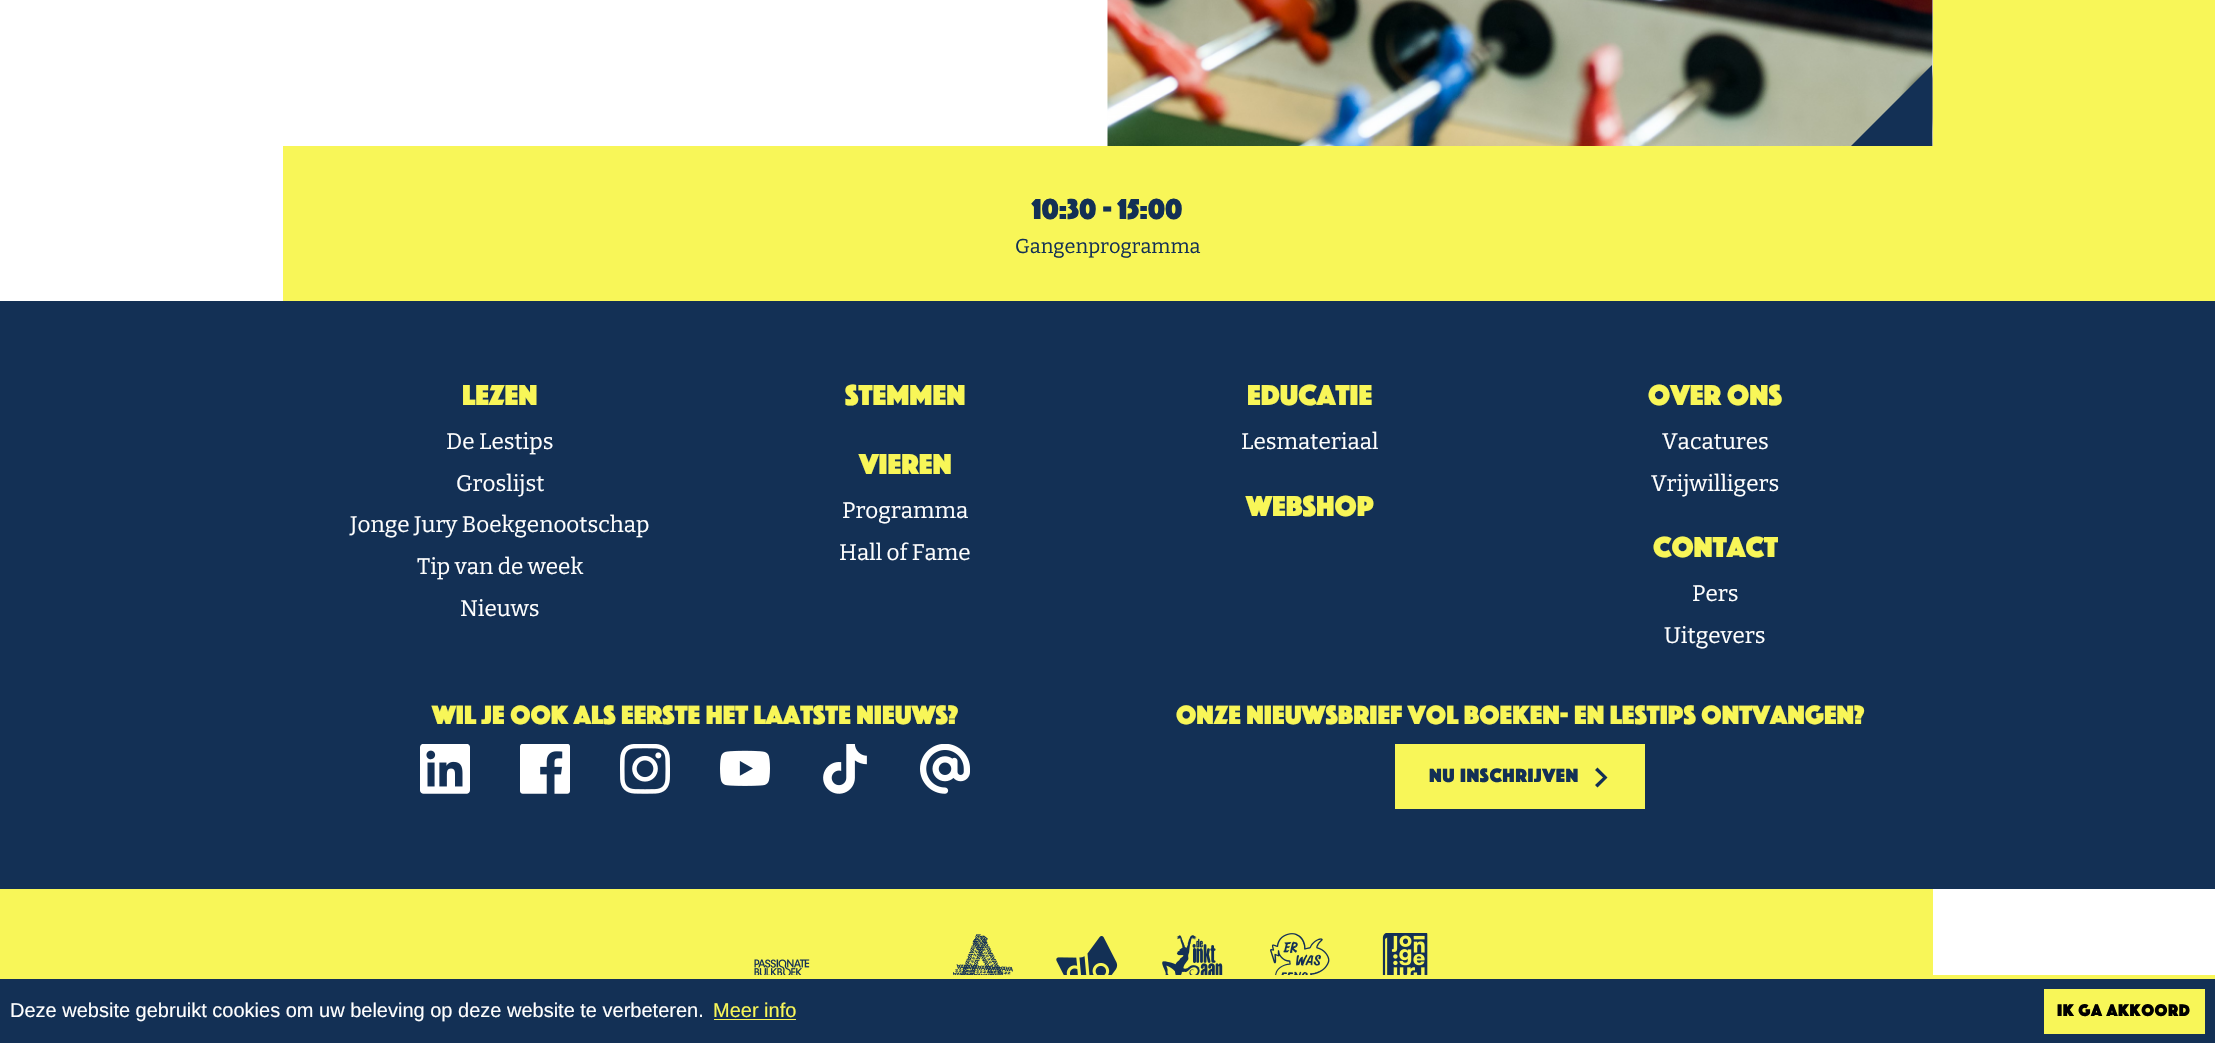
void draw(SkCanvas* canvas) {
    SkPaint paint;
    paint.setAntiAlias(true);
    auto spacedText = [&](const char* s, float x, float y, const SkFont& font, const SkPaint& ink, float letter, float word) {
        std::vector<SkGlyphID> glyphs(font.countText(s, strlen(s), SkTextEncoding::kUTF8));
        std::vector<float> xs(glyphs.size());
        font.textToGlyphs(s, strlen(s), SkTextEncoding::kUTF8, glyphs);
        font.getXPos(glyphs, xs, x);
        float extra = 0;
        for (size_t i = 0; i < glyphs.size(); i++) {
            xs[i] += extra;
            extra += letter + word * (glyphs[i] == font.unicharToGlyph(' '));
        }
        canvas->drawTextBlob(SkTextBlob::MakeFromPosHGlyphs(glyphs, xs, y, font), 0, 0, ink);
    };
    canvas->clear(0xFFFFFFFF);
    canvas->drawImageRect(SkImages::DeferredFromEncodedData(SkData::MakeFromFileName("img1.png")), SkRect::MakeXYWH(1107, 0, 826, 146), SkSamplingOptions());
    paint.setColor(0xFFF8F658);
    canvas->drawRect(SkRect::MakeXYWH(1933, 0, 282, 146), paint);
    paint.setColor(0xFF133055);
    canvas->drawPath(SkPathBuilder().moveTo(1932, 146).lineTo(1851, 146).lineTo(1932, 65).close().detach(), paint);
    paint.setColor(0xFFF8F658);
    canvas->drawRect(SkRect::MakeXYWH(283, 146, 1932, 155), paint);
    SkFont font1(fontMgr->matchFamilyStyle("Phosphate", SkFontStyle::Normal()), 30);
    font1.setSubpixel(true);
    paint.setColor(0xFF133055);
    canvas->drawString("10:30 - 15:00", 1032, 219, font1, paint);
    SkFont font2(fontMgr->matchFamilyStyle("Bitter", SkFontStyle::Normal()), 20);
    font2.setSubpixel(true);
    canvas->drawString("Gangenprogramma", 1015, 253, font2, paint);
    canvas->drawRect(SkRect::MakeXYWH(0, 301, 2215, 588), paint);
    paint.setColor(0xFFF8F658);
    canvas->drawString("Lezen", 462, 405, font1, paint);
    SkFont font3(fontMgr->matchFamilyStyle("Bitter", SkFontStyle::Normal()), 22.5f);
    font3.setSubpixel(true);
    paint.setColor(0xFFFFFFFF);
    canvas->drawString("De Lestips", 446, 449, font3, paint);
    canvas->drawString("Groslijst", 456, 491, font3, paint);
    canvas->drawString("Jonge Jury Boekgenootschap", 350, 532, font3, paint);
    canvas->drawString("Tip van de week", 417, 574, font3, paint);
    canvas->drawString("Nieuws", 460, 616, font3, paint);
    paint.setColor(0xFFF8F658);
    canvas->drawString("Stemmen", 845, 405, font1, paint);
    canvas->drawString("Educatie", 1247, 405, font1, paint);
    paint.setColor(0xFFFFFFFF);
    canvas->drawString("Lesmateriaal", 1241, 449, font3, paint);
    paint.setColor(0xFFF8F658);
    canvas->drawString("Over Ons", 1648, 405, font1, paint);
    paint.setColor(0xFFFFFFFF);
    canvas->drawString("Vacatures", 1662, 449, font3, paint);
    canvas->drawString("Vrijwilligers", 1651, 491, font3, paint);
    paint.setColor(0xFFF8F658);
    canvas->drawString("Vieren", 859, 474, font1, paint);
    paint.setColor(0xFFFFFFFF);
    canvas->drawString("Programma", 842, 518, font3, paint);
    canvas->drawString("Hall of Fame", 839, 560, font3, paint);
    paint.setColor(0xFFF8F658);
    canvas->drawString("Webshop", 1246, 516, font1, paint);
    canvas->drawString("Contact", 1653, 557, font1, paint);
    paint.setColor(0xFFFFFFFF);
    canvas->drawString("Pers", 1692, 601, font3, paint);
    canvas->drawString("Uitgevers", 1664, 643, font3, paint);
    SkFont font4(fontMgr->matchFamilyStyle("Phosphate", SkFontStyle::Normal()), 27.5f);
    font4.setSubpixel(true);
    paint.setColor(0xFFF8F658);
    canvas->drawString("Wil je ook als eerste het laatste nieuws?", 432, 724, font4, paint);
    canvas->drawImageRect(SkImages::DeferredFromEncodedData(SkData::MakeFromFileName("img2.png")), SkRect::MakeXYWH(420, 744, 50, 50), SkSamplingOptions());
    canvas->drawImageRect(SkImages::DeferredFromEncodedData(SkData::MakeFromFileName("img3.png")), SkRect::MakeXYWH(520, 744, 50, 50), SkSamplingOptions());
    canvas->drawImageRect(SkImages::DeferredFromEncodedData(SkData::MakeFromFileName("img4.png")), SkRect::MakeXYWH(620, 744, 50, 50), SkSamplingOptions());
    canvas->drawImageRect(SkImages::DeferredFromEncodedData(SkData::MakeFromFileName("img5.png")), SkRect::MakeXYWH(720, 750, 50, 36), SkSamplingOptions());
    canvas->drawImageRect(SkImages::DeferredFromEncodedData(SkData::MakeFromFileName("img6.png")), SkRect::MakeXYWH(823, 744, 44, 50), SkSamplingOptions());
    canvas->drawImageRect(SkImages::DeferredFromEncodedData(SkData::MakeFromFileName("img7.png")), SkRect::MakeXYWH(920, 744, 50, 50), SkSamplingOptions());
    canvas->drawString("Onze nieuwsbrief vol boeken- en lestips ontvangen?", 1176, 724, font4, paint);
    canvas->drawRect(SkRect::MakeXYWH(1395, 744, 250, 65), paint);
    SkFont font5(fontMgr->matchFamilyStyle("Phosphate", SkFontStyle::Normal()), 20);
    font5.setSubpixel(true);
    paint.setColor(0xFF133055);
    spacedText("NU INSCHRIJVEN", 1429, 782, font5, paint, 0.6f, 0);
    canvas->drawPath(SkPathBuilder().moveTo(1597.5f, 787.5f).lineTo(1595, 785).lineTo(1603, 777.5f).lineTo(1595, 770).lineTo(1597.5f, 767.5f).lineTo(1607.5f, 777.5f).close().detach(), paint);
    paint.setColor(0xFFF8F658);
    canvas->drawRect(SkRect::MakeXYWH(0, 889, 1933, 86), paint);
    canvas->drawImageRect(SkImages::DeferredFromEncodedData(SkData::MakeFromFileName("img8.png")), SkRect::MakeXYWH(754, 959, 56, 16), SkSamplingOptions());
    canvas->drawImageRect(SkImages::DeferredFromEncodedData(SkData::MakeFromFileName("img9.png")), SkRect::MakeXYWH(953, 934, 60, 41), SkSamplingOptions());
    canvas->drawImageRect(SkImages::DeferredFromEncodedData(SkData::MakeFromFileName("img10.png")), SkRect::MakeXYWH(1056, 936, 62, 39), SkSamplingOptions());
    canvas->drawImageRect(SkImages::DeferredFromEncodedData(SkData::MakeFromFileName("img11.png")), SkRect::MakeXYWH(1162, 935, 61, 40), SkSamplingOptions());
    canvas->drawImageRect(SkImages::DeferredFromEncodedData(SkData::MakeFromFileName("img12.png")), SkRect::MakeXYWH(1270, 933, 60, 42), SkSamplingOptions());
    canvas->drawImageRect(SkImages::DeferredFromEncodedData(SkData::MakeFromFileName("img13.png")), SkRect::MakeXYWH(1382, 933, 46, 42), SkSamplingOptions());
    paint.setColor(0xFF133055);
    canvas->drawRect(SkRect::MakeXYWH(0, 979, 2215, 64), paint);
    paint.setColor(0xFFF8F658);
    canvas->drawRect(SkRect::MakeXYWH(0, 975, 2215, 4), paint);
    SkFont font6(fontMgr->matchFamilyStyle("Liberation Sans", SkFontStyle::Normal()), 20);
    font6.setSubpixel(true);
    paint.setColor(0xFFFFFFFF);
    canvas->drawString("Deze website gebruikt cookies om uw beleving op deze website te verbeteren.", 10, 1017, font6, paint);
    paint.setColor(0xFFF8F658);
    canvas->drawString("Meer info", 713, 1017, font6, paint);
    canvas->drawRect(SkRect::MakeXYWH(714, 1019, 82, 1), paint);
    canvas->drawRect(SkRect::MakeXYWH(2044, 989, 161, 45), paint);
    SkFont font7(fontMgr->matchFamilyStyle("Phosphate", SkFontStyle::Normal()), 17.5f);
    font7.setSubpixel(true);
    paint.setColor(0xFF000000);
    spacedText("IK GA AKKOORD", 2057, 1016, font7, paint, 0.5f, 0);
}
